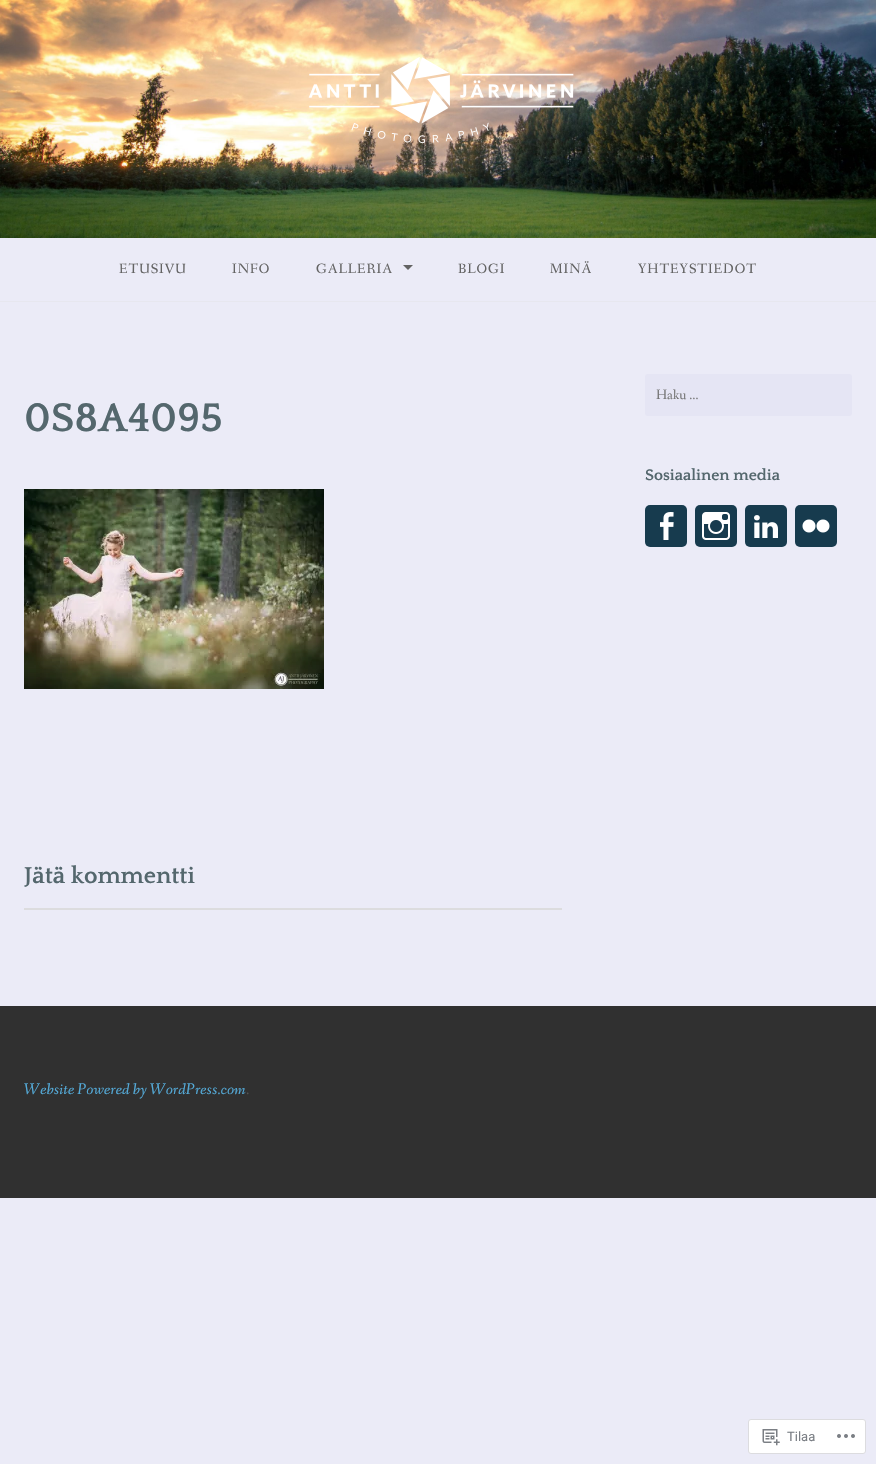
void draw(SkCanvas* canvas) {
    SkPaint paint;
    paint.setAntiAlias(true);
    auto spacedText = [&](const char* s, float x, float y, const SkFont& font, const SkPaint& ink, float letter, float word) {
        std::vector<SkGlyphID> glyphs(font.countText(s, strlen(s), SkTextEncoding::kUTF8));
        std::vector<float> xs(glyphs.size());
        font.textToGlyphs(s, strlen(s), SkTextEncoding::kUTF8, glyphs);
        font.getXPos(glyphs, xs, x);
        float extra = 0;
        for (size_t i = 0; i < glyphs.size(); i++) {
            xs[i] += extra;
            extra += letter + word * (glyphs[i] == font.unicharToGlyph(' '));
        }
        canvas->drawTextBlob(SkTextBlob::MakeFromPosHGlyphs(glyphs, xs, y, font), 0, 0, ink);
    };
    canvas->clear(0xFFEBEBF7);
    canvas->drawImageRect(SkImages::DeferredFromEncodedData(SkData::MakeFromFileName("img1.png")), SkRect::MakeXYWH(0, 0, 876, 238), SkSamplingOptions());
    canvas->drawImageRect(SkImages::DeferredFromEncodedData(SkData::MakeFromFileName("img2.png")), SkRect::MakeXYWH(308, 57, 266, 87), SkSamplingOptions());
    paint.setColor(0xFFE7E7EF);
    canvas->drawRect(SkRect::MakeXYWH(0, 301, 876, 1), paint);
    SkFont font1(fontMgr->matchFamilyStyle("Fanwood Text", SkFontStyle::Normal()), 14);
    font1.setSubpixel(true);
    paint.setColor(0xFF636363);
    spacedText("ETUSIVU", 119, 273, font1, paint, 1, 0);
    spacedText("INFO", 232, 273, font1, paint, 1, 0);
    spacedText("GALLERIA", 316, 273, font1, paint, 1, 0);
    canvas->drawPath(SkPathBuilder().moveTo(403, 265).lineTo(413, 265).lineTo(408, 270).close().detach(), paint);
    spacedText("BLOGI", 458, 273, font1, paint, 1, 0);
    spacedText("MINÄ", 550, 273, font1, paint, 1, 0);
    spacedText("YHTEYSTIEDOT", 638, 273, font1, paint, 1, 0);
    SkFont font2(fontMgr->matchFamilyStyle("Quattrocento", SkFontStyle::Bold()), 42);
    font2.setSubpixel(true);
    paint.setColor(0xFF54676D);
    canvas->drawString("0S8A4095", 24, 431, font2, paint);
    canvas->drawImageRect(SkImages::DeferredFromEncodedData(SkData::MakeFromFileName("img3.png")), SkRect::MakeXYWH(24, 489, 300, 200), SkSamplingOptions());
    SkFont font3(fontMgr->matchFamilyStyle("Quattrocento", SkFontStyle::Bold()), 24);
    font3.setSubpixel(true);
    canvas->drawString("Jätä kommentti", 24, 883, font3, paint);
    paint.setColor(0xFFDCDCDE);
    canvas->drawRect(SkRect::MakeXYWH(24, 908, 538, 2), paint);
    paint.setColor(0xFFE5E5F4);
    canvas->drawRoundRect(SkRect::MakeXYWH(645, 374, 207, 42), 3, 3, paint);
    paint.setColor(0xFF757575);
    canvas->drawString("Haku …", 656, 399, font1, paint);
    SkFont font4(fontMgr->matchFamilyStyle("Quattrocento", SkFontStyle::Bold()), 16);
    font4.setSubpixel(true);
    paint.setColor(0xFF54676D);
    canvas->drawString("Sosiaalinen media", 645, 480, font4, paint);
    paint.setColor(0xFF173B4E);
    canvas->drawRoundRect(SkRect::MakeXYWH(645, 505, 42, 42), 5, 5, paint);
    canvas->drawImageRect(SkImages::DeferredFromEncodedData(SkData::MakeFromFileName("img4.png")), SkRect::MakeXYWH(660, 512, 14, 28), SkSamplingOptions());
    canvas->drawRoundRect(SkRect::MakeXYWH(695, 505, 42, 42), 5, 5, paint);
    canvas->drawImageRect(SkImages::DeferredFromEncodedData(SkData::MakeFromFileName("img5.png")), SkRect::MakeXYWH(702, 512, 28, 28), SkSamplingOptions());
    canvas->drawRoundRect(SkRect::MakeXYWH(745, 505, 42, 42), 5, 5, paint);
    canvas->drawImageRect(SkImages::DeferredFromEncodedData(SkData::MakeFromFileName("img6.png")), SkRect::MakeXYWH(754, 515, 24, 23), SkSamplingOptions());
    canvas->drawRoundRect(SkRect::MakeXYWH(795, 505, 42, 42), 5, 5, paint);
    canvas->drawImageRect(SkImages::DeferredFromEncodedData(SkData::MakeFromFileName("img7.png")), SkRect::MakeXYWH(802, 519, 28, 14), SkSamplingOptions());
    paint.setColor(0xFF303030);
    canvas->drawRect(SkRect::MakeXYWH(0, 1006, 876, 192), paint);
    SkFont font5(fontMgr->matchFamilyStyle("Fanwood Text", SkFontStyle::Italic()), 16);
    font5.setSubpixel(true);
    paint.setColor(0xFF54AAD8);
    canvas->drawString("Website Powered by WordPress.com", 24, 1094, font5, paint);
    paint.setColor(0xFF555555);
    canvas->drawString(".", 246, 1094, font5, paint);
    paint.setColor(0xFFFFFFFF);
    canvas->drawRoundRect(SkRect::MakeXYWH(748.5f, 1419.5f, 117, 34), 2.5f, 2.5f, paint);
    paint.setStyle(SkPaint::kStroke_Style);
    paint.setStrokeWidth(1);
    paint.setColor(0xFFDCDCDF);
    canvas->drawRoundRect(SkRect::MakeXYWH(748.5f, 1419.5f, 117, 34), 2.5f, 2.5f, paint);
    canvas->drawImageRect(SkImages::DeferredFromEncodedData(SkData::MakeFromFileName("img8.png")), SkRect::MakeXYWH(762, 1429, 18, 17), SkSamplingOptions());
    SkFont font6(fontMgr->matchFamilyStyle("Roboto", SkFontStyle::Normal()), 13);
    font6.setSubpixel(true);
    paint.setStyle(SkPaint::kFill_Style);
    paint.setColor(0xFF7A7E84);
    canvas->drawString("Tilaa", 787, 1441, font6, paint);
    canvas->drawImageRect(SkImages::DeferredFromEncodedData(SkData::MakeFromFileName("img9.png")), SkRect::MakeXYWH(837, 1434, 18, 4), SkSamplingOptions());
}
